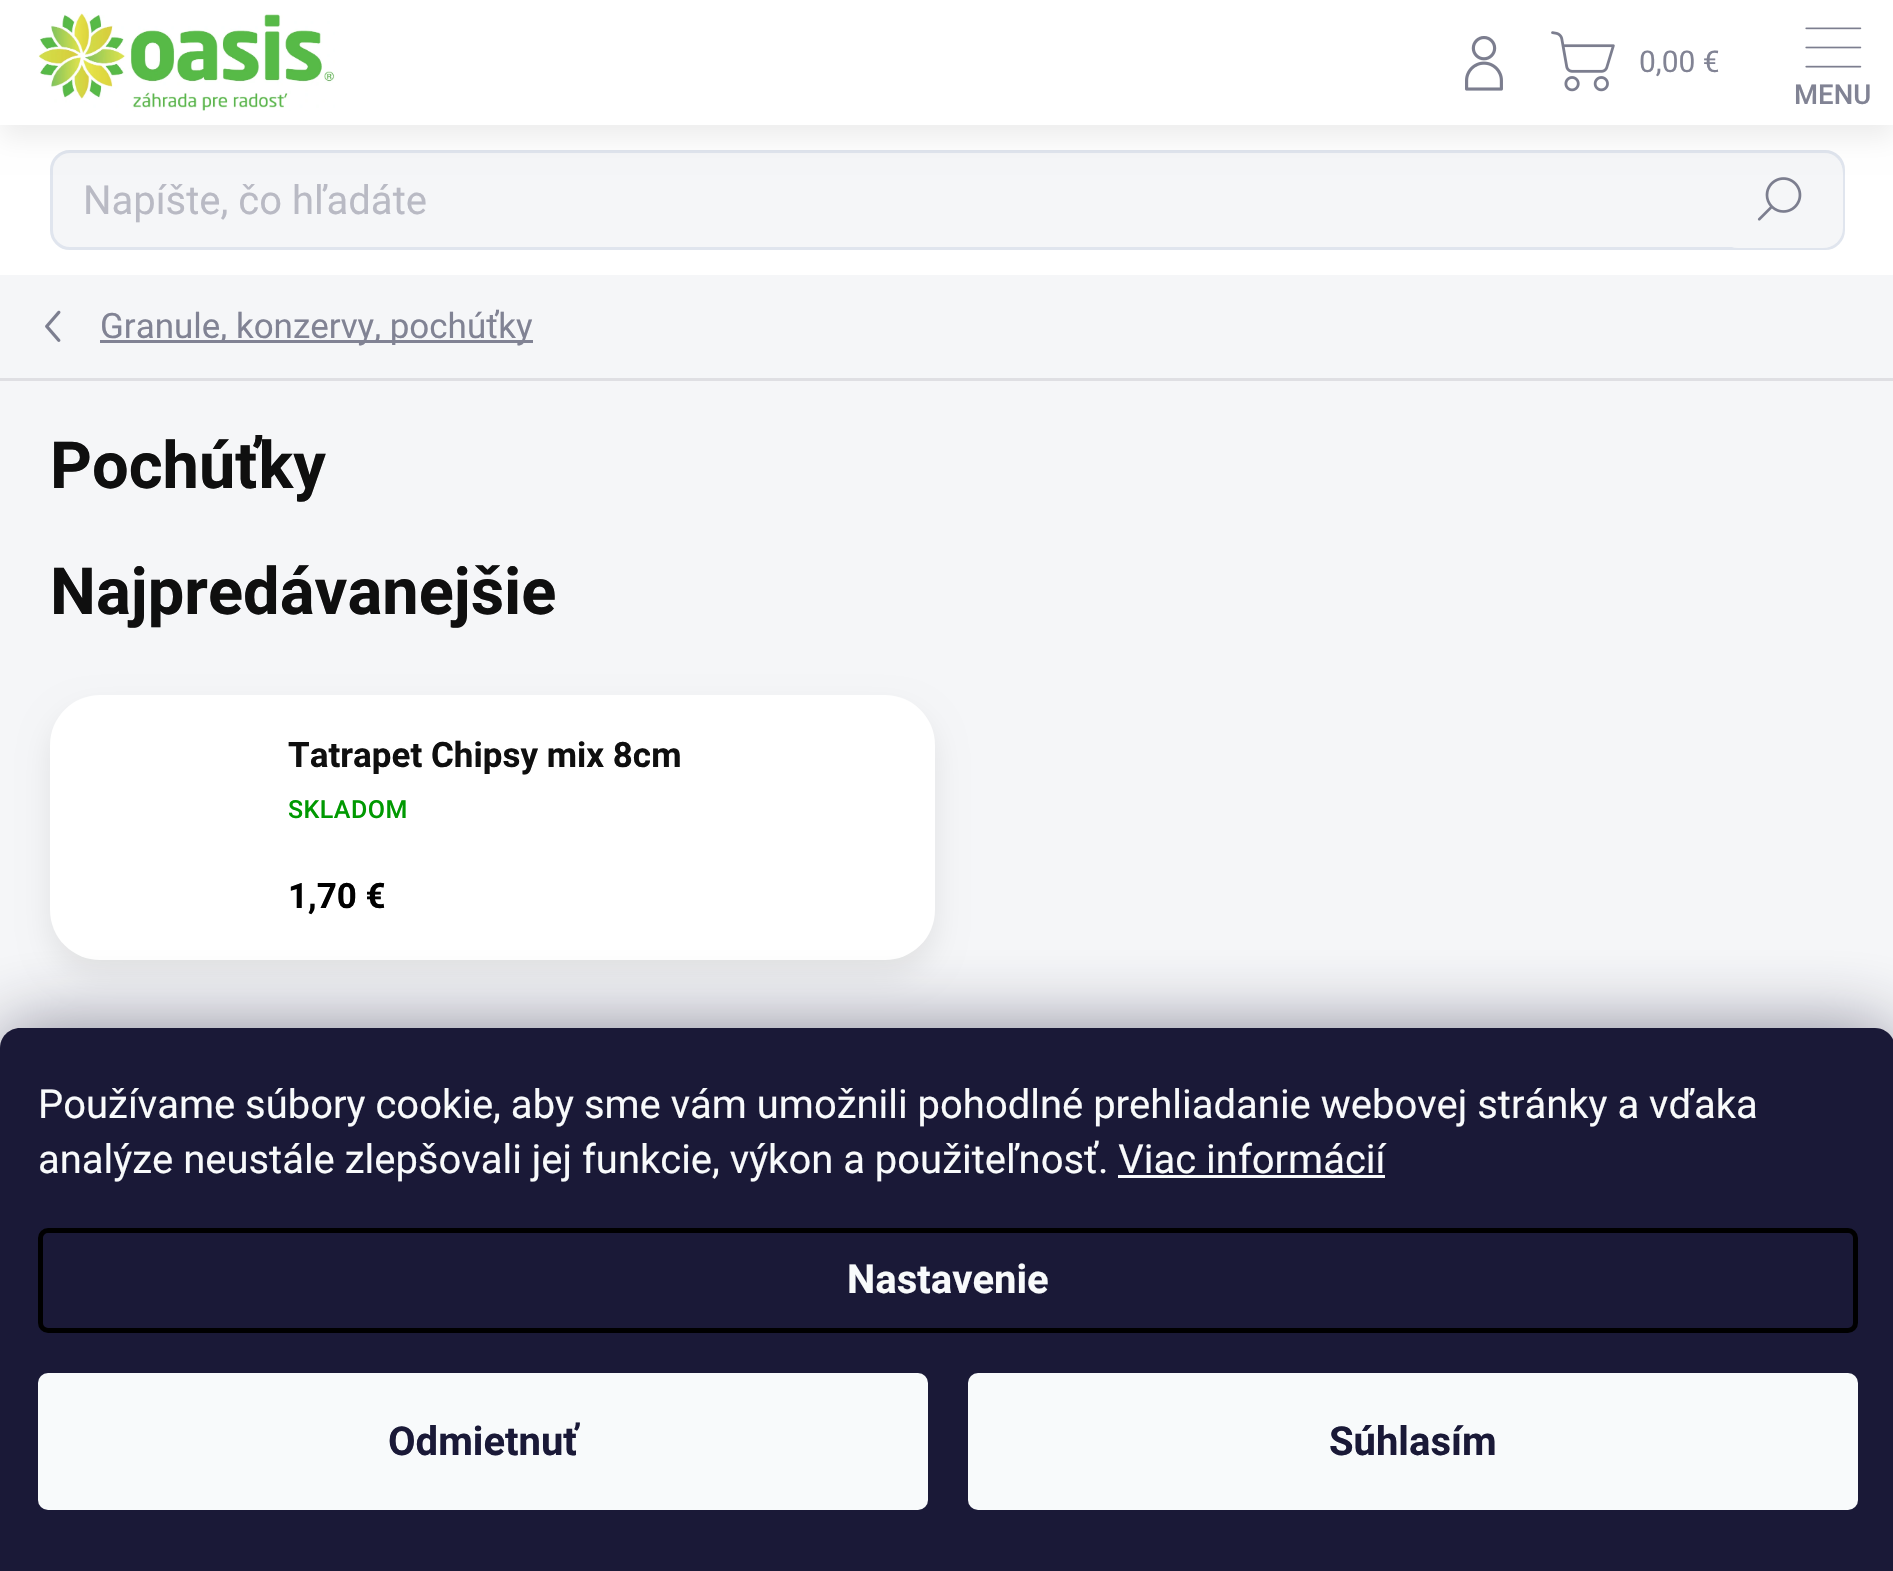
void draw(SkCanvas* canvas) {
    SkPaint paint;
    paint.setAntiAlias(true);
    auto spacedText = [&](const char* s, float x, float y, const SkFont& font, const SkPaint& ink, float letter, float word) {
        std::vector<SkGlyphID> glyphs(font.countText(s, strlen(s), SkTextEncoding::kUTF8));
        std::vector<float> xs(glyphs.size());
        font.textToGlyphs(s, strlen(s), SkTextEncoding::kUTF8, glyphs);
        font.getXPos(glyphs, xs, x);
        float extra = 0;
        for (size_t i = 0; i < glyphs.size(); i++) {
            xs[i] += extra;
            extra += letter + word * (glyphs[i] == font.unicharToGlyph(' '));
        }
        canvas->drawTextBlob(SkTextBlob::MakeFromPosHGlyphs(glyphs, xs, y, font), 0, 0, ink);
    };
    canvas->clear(0xFFF5F6F8);
    paint.setColor(0xFFFFFFFF);
    canvas->drawRect(SkRect::MakeXYWH(0, 125, 1893, 150), paint);
    paint.setColor(0xFFF5F6F8);
    canvas->drawRoundRect(SkRect::MakeXYWH(51.5f, 151.5f, 1792, 97), 18.5f, 18.5f, paint);
    paint.setStyle(SkPaint::kStroke_Style);
    paint.setStrokeWidth(3);
    paint.setColor(0xFFE0E5EE);
    canvas->drawRoundRect(SkRect::MakeXYWH(51.5f, 151.5f, 1792, 97), 18.5f, 18.5f, paint);
    paint.setStyle(SkPaint::kFill_Style);
    paint.setColor(0xFFF5F6F8);
    canvas->drawRoundRect(SkRect::MakeXYWH(1718, 153, 125, 95), 20, 20, paint);
    paint.setColor(0x12000000);
    paint.setMaskFilter(SkMaskFilter::MakeBlur(kNormal_SkBlurStyle, 12.5f));
    canvas->drawRect(SkRect::MakeXYWH(0, 13, 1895, 125), paint);
    paint.setMaskFilter(nullptr);
    paint.setColor(0xFFFFFFFF);
    canvas->drawRect(SkRect::MakeXYWH(0, 0, 1893, 125), paint);
    canvas->drawImageRect(SkImages::DeferredFromEncodedData(SkData::MakeFromFileName("img1.png")), SkRect::MakeXYWH(38, 13, 297, 98), SkSamplingOptions());
    canvas->drawImageRect(SkImages::DeferredFromEncodedData(SkData::MakeFromFileName("img2.png")), SkRect::MakeXYWH(1465, 36, 38, 55), SkSamplingOptions());
    canvas->drawImageRect(SkImages::DeferredFromEncodedData(SkData::MakeFromFileName("img3.png")), SkRect::MakeXYWH(1551, 31, 64, 61), SkSamplingOptions());
    SkFont font1(fontMgr->matchFamilyStyle("Roboto", SkFontStyle::Normal()), 30);
    font1.setSubpixel(true);
    paint.setColor(0xFF818394);
    canvas->drawString("0,00 €", 1639, 72, font1, paint);
    canvas->drawImageRect(SkImages::DeferredFromEncodedData(SkData::MakeFromFileName("img4.png")), SkRect::MakeXYWH(1805, 27, 57, 41), SkSamplingOptions());
    SkFont font2(fontMgr->matchFamilyStyle("Roboto", SkFontStyle(500, SkFontStyle::kNormal_Width, SkFontStyle::kUpright_Slant)), 27.5f);
    font2.setSubpixel(true);
    canvas->drawString("MENU", 1794, 104, font2, paint);
    SkFont font3(fontMgr->matchFamilyStyle("Roboto", SkFontStyle::Normal()), 40);
    font3.setSubpixel(true);
    paint.setColor(0xFFB9BAC4);
    canvas->drawString("Napíšte, čo hľadáte", 83, 214, font3, paint);
    canvas->drawImageRect(SkImages::DeferredFromEncodedData(SkData::MakeFromFileName("img5.png")), SkRect::MakeXYWH(1757, 177, 45, 44), SkSamplingOptions());
    paint.setColor(0xFFDFDFE3);
    canvas->drawRect(SkRect::MakeXYWH(0, 378, 1893, 3), paint);
    canvas->drawImageRect(SkImages::DeferredFromEncodedData(SkData::MakeFromFileName("img6.png")), SkRect::MakeXYWH(45, 310, 16, 32), SkSamplingOptions());
    paint.setColor(0xFF818394);
    canvas->drawRect(SkRect::MakeXYWH(100, 340, 433, 3), paint);
    SkFont font4(fontMgr->matchFamilyStyle("Roboto", SkFontStyle::Normal()), 35);
    font4.setSubpixel(true);
    canvas->drawString("Granule, konzervy, pochúťky", 100, 338, font4, paint);
    SkFont font5(fontMgr->matchFamilyStyle("Roboto", SkFontStyle::Bold()), 65);
    font5.setSubpixel(true);
    paint.setColor(0xFF0F0F0F);
    canvas->drawString("Pochúťky", 50, 488, font5, paint);
    canvas->drawString("Najpredávanejšie", 50, 614, font5, paint);
    paint.setColor(0x14000000);
    paint.setMaskFilter(SkMaskFilter::MakeBlur(kNormal_SkBlurStyle, 15));
    canvas->drawRoundRect(SkRect::MakeXYWH(50, 710, 885, 265), 50, 50, paint);
    paint.setMaskFilter(nullptr);
    paint.setColor(0xFFFFFFFF);
    canvas->drawRoundRect(SkRect::MakeXYWH(50, 695, 885, 265), 50, 50, paint);
    SkFont font6(fontMgr->matchFamilyStyle("Roboto", SkFontStyle::Bold()), 35);
    font6.setSubpixel(true);
    paint.setColor(0xFF0F0F0F);
    canvas->drawString("Tatrapet Chipsy mix 8cm", 288, 767, font6, paint);
    SkFont font7(fontMgr->matchFamilyStyle("Roboto", SkFontStyle(500, SkFontStyle::kNormal_Width, SkFontStyle::kUpright_Slant)), 25);
    font7.setSubpixel(true);
    paint.setColor(0xFF009901);
    spacedText("SKLADOM", 288, 818, font7, paint, 0.5f, 0);
    paint.setColor(0xFF000000);
    canvas->drawString("1,70 €", 288, 908, font6, paint);
    paint.setColor(0x801B1939);
    paint.setMaskFilter(SkMaskFilter::MakeBlur(kNormal_SkBlurStyle, 37.5f));
    canvas->drawRoundRect(SkRect::MakeXYWH(0, 1028, 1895, 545), 20, 20, paint);
    paint.setMaskFilter(nullptr);
    paint.setColor(0xFF1A1937);
    canvas->drawPath(SkPathBuilder().moveTo(20, 1028).lineTo(1875, 1028).cubicTo(1886, 1028, 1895, 1037, 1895, 1048).lineTo(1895, 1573).lineTo(0, 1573).lineTo(0, 1048).cubicTo(0, 1037, 9, 1028, 20, 1028).close().detach(), paint);
    paint.setColor(0xFFF8FAFB);
    canvas->drawString("Používame súbory cookie, aby sme vám umožnili pohodlné prehliadanie webovej stránky a vďaka", 38, 1118, font3, paint);
    canvas->drawString("analýze neustále zlepšovali jej funkcie, výkon a použiteľnosť. Viac informácií", 38, 1173, font3, paint);
    canvas->drawRect(SkRect::MakeXYWH(1118, 1175, 267, 3), paint);
    paint.setStyle(SkPaint::kStroke_Style);
    paint.setStrokeWidth(5);
    paint.setColor(0xFF000000);
    canvas->drawRoundRect(SkRect::MakeXYWH(40.5f, 1230.5f, 1815, 100), 7.5f, 7.5f, paint);
    SkFont font8(fontMgr->matchFamilyStyle("Roboto", SkFontStyle::Bold()), 40);
    font8.setSubpixel(true);
    paint.setStyle(SkPaint::kFill_Style);
    paint.setColor(0xFFF8FAFB);
    canvas->drawString("Nastavenie", 847, 1293, font8, paint);
    canvas->drawRoundRect(SkRect::MakeXYWH(38, 1373, 890, 137), 10, 10, paint);
    paint.setColor(0xFF1A1937);
    canvas->drawString("Odmietnuť", 388, 1455, font8, paint);
    paint.setColor(0xFFF8FAFB);
    canvas->drawRoundRect(SkRect::MakeXYWH(968, 1373, 890, 137), 10, 10, paint);
    paint.setColor(0xFF1A1937);
    canvas->drawString("Súhlasím", 1329, 1455, font8, paint);
}
